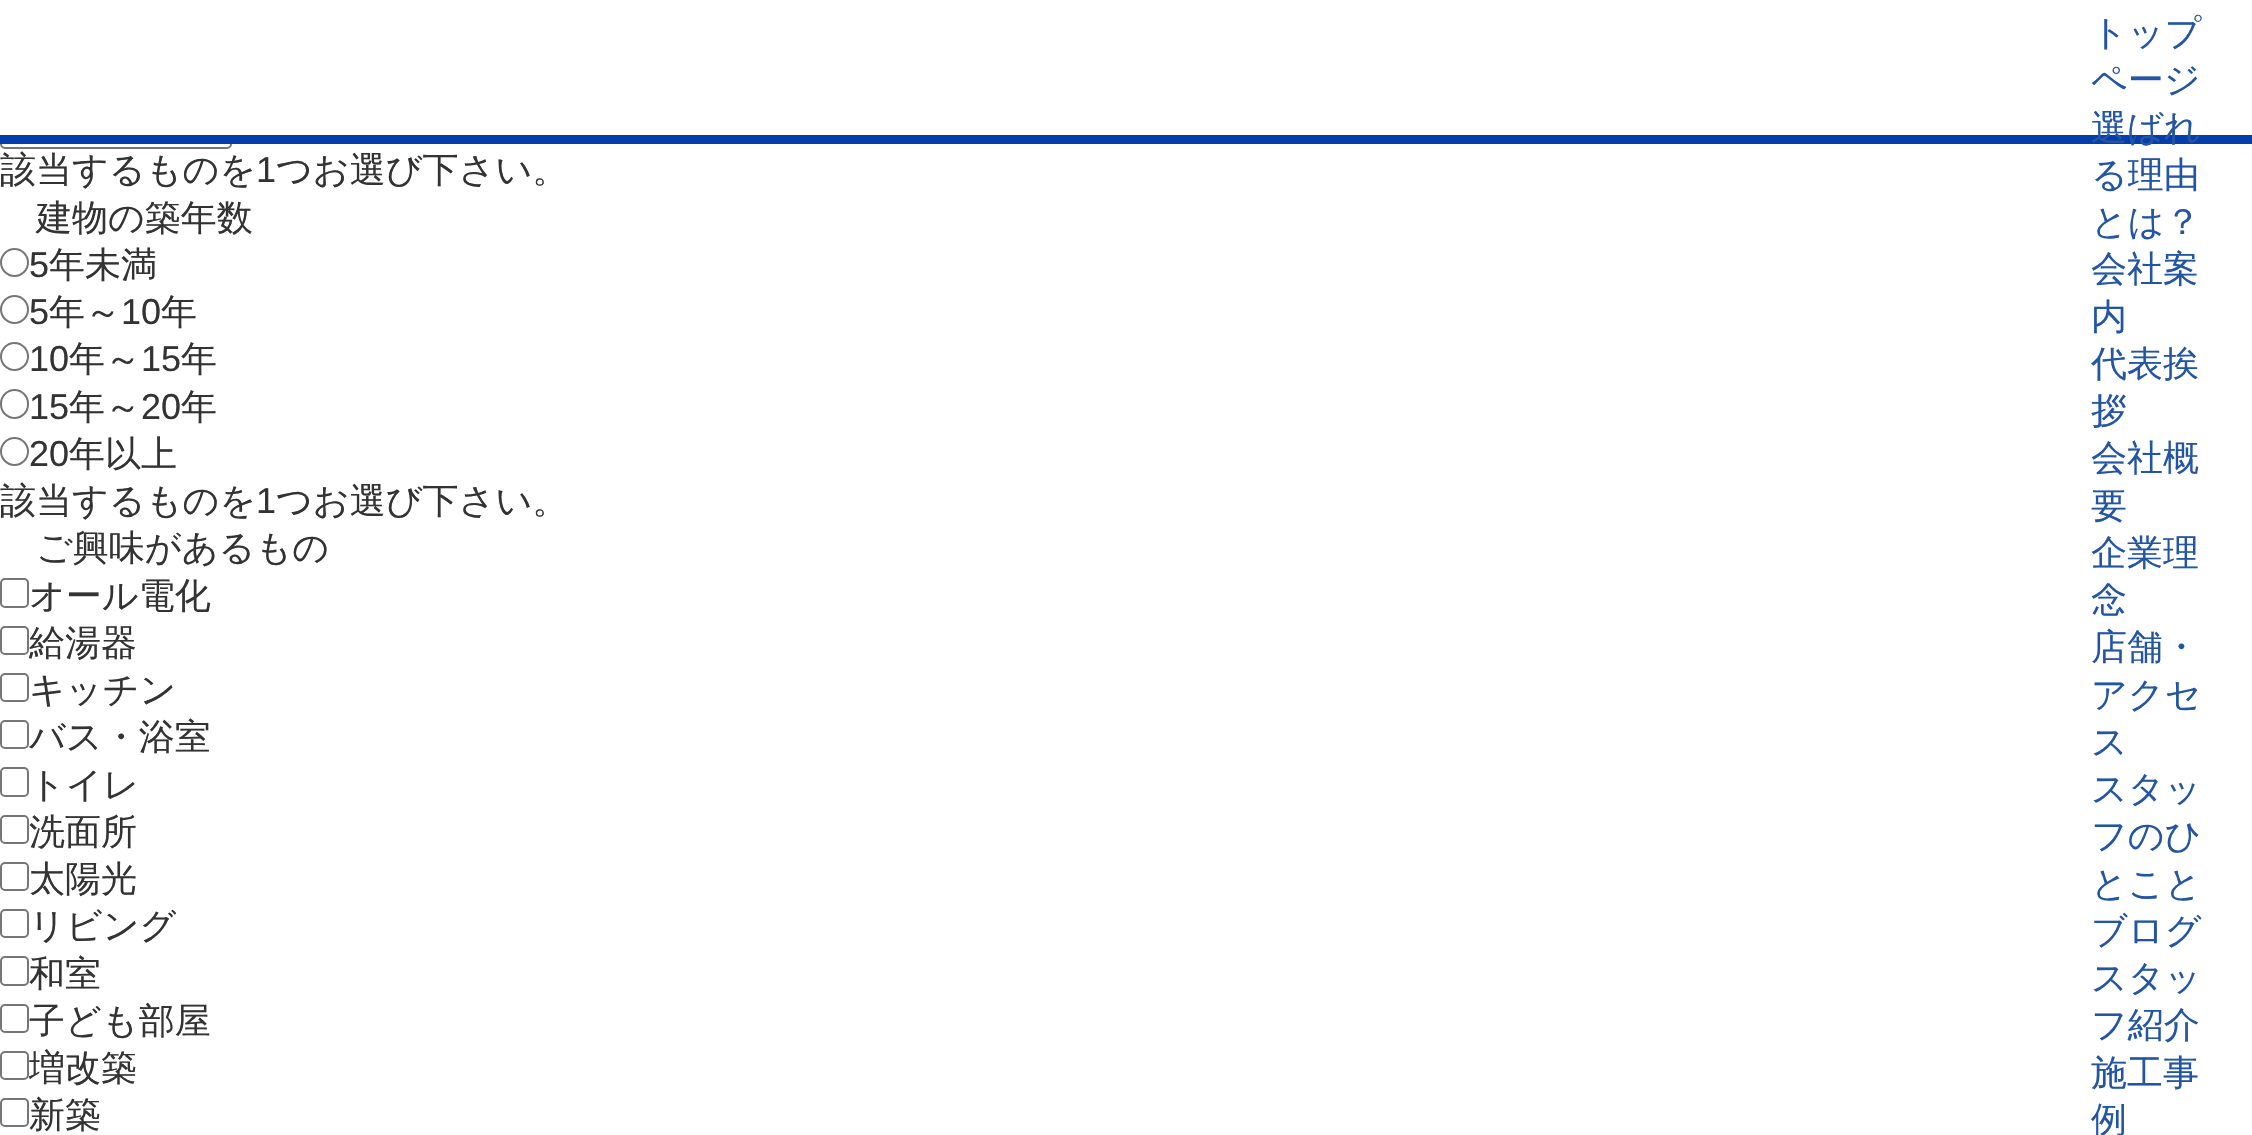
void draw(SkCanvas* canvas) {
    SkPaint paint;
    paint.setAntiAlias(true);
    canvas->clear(0xFFFFFFFF);
    paint.setStyle(SkPaint::kStroke_Style);
    paint.setStrokeWidth(2);
    paint.setColor(0xFF767676);
    canvas->drawRoundRect(SkRect::MakeXYWH(1, 107, 230, 41), 4, 4, paint);
    SkFont font1(fontMgr->matchFamilyStyle("WenQuanYi Zen Hei", SkFontStyle(500, SkFontStyle::kNormal_Width, SkFontStyle::kUpright_Slant)), 36);
    font1.setSubpixel(true);
    paint.setStyle(SkPaint::kFill_Style);
    paint.setColor(0xFF333333);
    canvas->drawString("該当するものを", 0, 182, font1, paint);
    SkFont font2(fontMgr->matchFamilyStyle("Liberation Sans", SkFontStyle::Normal()), 36);
    font2.setSubpixel(true);
    canvas->drawString("1", 256, 182, font2, paint);
    canvas->drawString("つお選び下さい。", 276, 182, font1, paint);
    canvas->drawString("建物の築年数", 36, 230, font1, paint);
    paint.setStyle(SkPaint::kStroke_Style);
    paint.setColor(0xFF767676);
    canvas->drawCircle(14.5f, 262.5f, 13.5f, paint);
    paint.setStyle(SkPaint::kFill_Style);
    paint.setColor(0xFF333333);
    canvas->drawString("5", 29, 277, font2, paint);
    canvas->drawString("年未満", 49, 277, font1, paint);
    paint.setStyle(SkPaint::kStroke_Style);
    paint.setColor(0xFF767676);
    canvas->drawCircle(14.5f, 309.5f, 13.5f, paint);
    paint.setStyle(SkPaint::kFill_Style);
    paint.setColor(0xFF333333);
    canvas->drawString("5", 29, 324, font2, paint);
    canvas->drawString("年～", 49, 324, font1, paint);
    canvas->drawString("10", 121, 324, font2, paint);
    canvas->drawString("年", 161, 324, font1, paint);
    paint.setStyle(SkPaint::kStroke_Style);
    paint.setColor(0xFF767676);
    canvas->drawCircle(14.5f, 356.5f, 13.5f, paint);
    paint.setStyle(SkPaint::kFill_Style);
    paint.setColor(0xFF333333);
    canvas->drawString("10", 29, 371, font2, paint);
    canvas->drawString("年～", 69, 371, font1, paint);
    canvas->drawString("15", 141, 371, font2, paint);
    canvas->drawString("年", 181, 371, font1, paint);
    paint.setStyle(SkPaint::kStroke_Style);
    paint.setColor(0xFF767676);
    canvas->drawRoundRect(SkRect::MakeXYWH(1, 390, 27, 28), 13.5f, 13.5f, paint);
    paint.setStyle(SkPaint::kFill_Style);
    paint.setColor(0xFF333333);
    canvas->drawString("15", 29, 419, font2, paint);
    canvas->drawString("年～", 69, 419, font1, paint);
    canvas->drawString("20", 141, 419, font2, paint);
    canvas->drawString("年", 181, 419, font1, paint);
    paint.setStyle(SkPaint::kStroke_Style);
    paint.setColor(0xFF767676);
    canvas->drawCircle(14.5f, 451.5f, 13.5f, paint);
    paint.setStyle(SkPaint::kFill_Style);
    paint.setColor(0xFF333333);
    canvas->drawString("20", 29, 466, font2, paint);
    canvas->drawString("年以上", 69, 466, font1, paint);
    canvas->drawString("該当するものを", 0, 513, font1, paint);
    canvas->drawString("1", 256, 513, font2, paint);
    canvas->drawString("つお選び下さい。", 276, 513, font1, paint);
    canvas->drawString("ご興味があるもの", 36, 560, font1, paint);
    paint.setStyle(SkPaint::kStroke_Style);
    paint.setColor(0xFF767676);
    canvas->drawRoundRect(SkRect::MakeXYWH(1, 579, 27, 28), 4, 4, paint);
    paint.setStyle(SkPaint::kFill_Style);
    paint.setColor(0xFF333333);
    canvas->drawString("オール電化", 29, 608, font1, paint);
    paint.setStyle(SkPaint::kStroke_Style);
    paint.setColor(0xFF767676);
    canvas->drawRoundRect(SkRect::MakeXYWH(1, 627, 27, 27), 4, 4, paint);
    paint.setStyle(SkPaint::kFill_Style);
    paint.setColor(0xFF333333);
    canvas->drawString("給湯器", 29, 655, font1, paint);
    paint.setStyle(SkPaint::kStroke_Style);
    paint.setColor(0xFF767676);
    canvas->drawRoundRect(SkRect::MakeXYWH(1, 674, 27, 27), 4, 4, paint);
    paint.setStyle(SkPaint::kFill_Style);
    paint.setColor(0xFF333333);
    canvas->drawString("キッチン", 29, 702, font1, paint);
    paint.setStyle(SkPaint::kStroke_Style);
    paint.setColor(0xFF767676);
    canvas->drawRoundRect(SkRect::MakeXYWH(1, 721, 27, 27), 4, 4, paint);
    paint.setStyle(SkPaint::kFill_Style);
    paint.setColor(0xFF333333);
    canvas->drawString("バス・浴室", 29, 749, font1, paint);
    paint.setStyle(SkPaint::kStroke_Style);
    paint.setColor(0xFF767676);
    canvas->drawRoundRect(SkRect::MakeXYWH(1, 768, 27, 28), 4, 4, paint);
    paint.setStyle(SkPaint::kFill_Style);
    paint.setColor(0xFF333333);
    canvas->drawString("トイレ", 29, 797, font1, paint);
    paint.setStyle(SkPaint::kStroke_Style);
    paint.setColor(0xFF767676);
    canvas->drawRoundRect(SkRect::MakeXYWH(1, 816, 27, 27), 4, 4, paint);
    paint.setStyle(SkPaint::kFill_Style);
    paint.setColor(0xFF333333);
    canvas->drawString("洗面所", 29, 844, font1, paint);
    paint.setStyle(SkPaint::kStroke_Style);
    paint.setColor(0xFF767676);
    canvas->drawRoundRect(SkRect::MakeXYWH(1, 863, 27, 27), 4, 4, paint);
    paint.setStyle(SkPaint::kFill_Style);
    paint.setColor(0xFF333333);
    canvas->drawString("太陽光", 29, 891, font1, paint);
    paint.setStyle(SkPaint::kStroke_Style);
    paint.setColor(0xFF767676);
    canvas->drawRoundRect(SkRect::MakeXYWH(1, 910, 27, 27), 4, 4, paint);
    paint.setStyle(SkPaint::kFill_Style);
    paint.setColor(0xFF333333);
    canvas->drawString("リビング", 29, 938, font1, paint);
    paint.setStyle(SkPaint::kStroke_Style);
    paint.setColor(0xFF767676);
    canvas->drawRoundRect(SkRect::MakeXYWH(1, 957, 27, 28), 4, 4, paint);
    paint.setStyle(SkPaint::kFill_Style);
    paint.setColor(0xFF333333);
    canvas->drawString("和室", 29, 986, font1, paint);
    paint.setStyle(SkPaint::kStroke_Style);
    paint.setColor(0xFF767676);
    canvas->drawRoundRect(SkRect::MakeXYWH(1, 1005, 27, 27), 4, 4, paint);
    paint.setStyle(SkPaint::kFill_Style);
    paint.setColor(0xFF333333);
    canvas->drawString("子ども部屋", 29, 1033, font1, paint);
    paint.setStyle(SkPaint::kStroke_Style);
    paint.setColor(0xFF767676);
    canvas->drawRoundRect(SkRect::MakeXYWH(1, 1052, 27, 27), 4, 4, paint);
    paint.setStyle(SkPaint::kFill_Style);
    paint.setColor(0xFF333333);
    canvas->drawString("増改築", 29, 1080, font1, paint);
    paint.setStyle(SkPaint::kStroke_Style);
    paint.setColor(0xFF767676);
    canvas->drawRoundRect(SkRect::MakeXYWH(1, 1099, 27, 27), 4, 4, paint);
    paint.setStyle(SkPaint::kFill_Style);
    paint.setColor(0xFF333333);
    canvas->drawString("新築", 29, 1127, font1, paint);
    paint.setColor(0xFFFFFFFF);
    canvas->drawRect(SkRect::MakeXYWH(0, 106, 232, 29), paint);
    paint.setColor(0xFF043EAB);
    canvas->drawRect(SkRect::MakeXYWH(0, 135, 2252, 9), paint);
    paint.setColor(0xFF2355A5);
    canvas->drawString("トップ", 2091, 45, font1, paint);
    canvas->drawString("ページ", 2091, 92, font1, paint);
    canvas->drawString("選ばれ", 2091, 140, font1, paint);
    canvas->drawString("る理由", 2091, 187, font1, paint);
    canvas->drawString("とは？", 2091, 234, font1, paint);
    canvas->drawString("会社案", 2091, 281, font1, paint);
    canvas->drawString("内", 2091, 329, font1, paint);
    canvas->drawString("代表挨", 2091, 376, font1, paint);
    canvas->drawString("拶", 2091, 423, font1, paint);
    canvas->drawString("会社概", 2091, 470, font1, paint);
    canvas->drawString("要", 2091, 518, font1, paint);
    canvas->drawString("企業理", 2091, 565, font1, paint);
    canvas->drawString("念", 2091, 612, font1, paint);
    canvas->drawString("店舗・", 2091, 659, font1, paint);
    canvas->drawString("アクセ", 2091, 707, font1, paint);
    canvas->drawString("ス", 2091, 754, font1, paint);
    canvas->drawString("スタッ", 2091, 801, font1, paint);
    canvas->drawString("フのひ", 2091, 848, font1, paint);
    canvas->drawString("とこと", 2091, 896, font1, paint);
    canvas->drawString("ブログ", 2091, 943, font1, paint);
    canvas->drawString("スタッ", 2091, 990, font1, paint);
    canvas->drawString("フ紹介", 2091, 1037, font1, paint);
    canvas->drawString("施工事", 2091, 1085, font1, paint);
    canvas->drawString("例", 2091, 1132, font1, paint);
}
